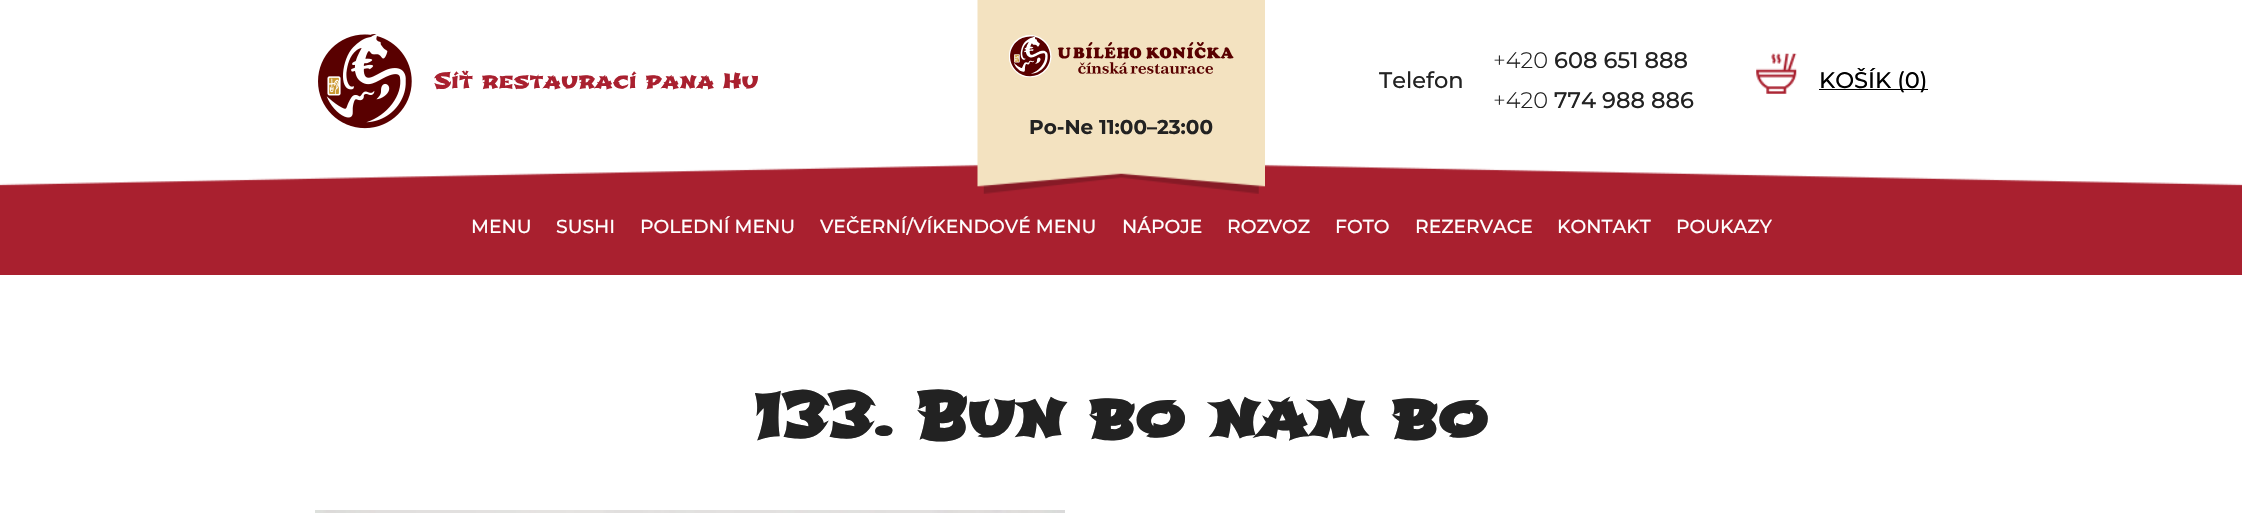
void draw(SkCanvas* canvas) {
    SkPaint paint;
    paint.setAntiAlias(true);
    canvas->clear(0xFFFFFFFF);
    canvas->drawImageRect(SkImages::DeferredFromEncodedData(SkData::MakeFromFileName("img1.png")), SkRect::MakeXYWH(318, 34, 94, 95), SkSamplingOptions());
    SkFont font1(fontMgr->matchFamilyStyle("Shojumaru", SkFontStyle::Normal()), 21.25f);
    font1.setSubpixel(true);
    paint.setColor(0xFFA9202F);
    canvas->drawString("Síť restaurací pana Hu", 434, 88, font1, paint);
    SkFont font2(fontMgr->matchFamilyStyle("Montserrat", SkFontStyle(500, SkFontStyle::kNormal_Width, SkFontStyle::kUpright_Slant)), 22.5f);
    font2.setSubpixel(true);
    paint.setColor(0xFF222222);
    canvas->drawString("Telefon", 1379, 88, font2, paint);
    SkFont font3(fontMgr->matchFamilyStyle("Montserrat", SkFontStyle(300, SkFontStyle::kNormal_Width, SkFontStyle::kUpright_Slant)), 22.5f);
    font3.setSubpixel(true);
    canvas->drawString("+420", 1493, 68, font3, paint);
    canvas->drawString("608 651 888", 1554, 68, font2, paint);
    canvas->drawString("+420", 1493, 108, font3, paint);
    canvas->drawString("774 988 886", 1554, 108, font2, paint);
    canvas->drawImageRect(SkImages::DeferredFromEncodedData(SkData::MakeFromFileName("img2.png")), SkRect::MakeXYWH(1756, 53, 41, 41), SkSamplingOptions());
    paint.setColor(0xFF000000);
    canvas->drawRect(SkRect::MakeXYWH(1819, 89, 109, 1), paint);
    canvas->drawString("KOŠÍK (0)", 1819, 88, font2, paint);
    paint.setColor(0xFFA9202F);
    canvas->drawRect(SkRect::MakeXYWH(0, 186, 2242, 89), paint);
    canvas->drawImageRect(SkImages::DeferredFromEncodedData(SkData::MakeFromFileName("img5.png")), SkRect::MakeXYWH(0, 162, 2242, 24), SkSamplingOptions());
    canvas->drawImageRect(SkImages::DeferredFromEncodedData(SkData::MakeFromFileName("img3.png")), SkRect::MakeXYWH(977, 0, 288, 194), SkSamplingOptions());
    canvas->drawImageRect(SkImages::DeferredFromEncodedData(SkData::MakeFromFileName("img4.png")), SkRect::MakeXYWH(1009, 35, 225, 43), SkSamplingOptions());
    SkFont font4(fontMgr->matchFamilyStyle("Montserrat", SkFontStyle::Bold()), 20);
    font4.setSubpixel(true);
    paint.setColor(0xFF222222);
    canvas->drawString("Po-Ne 11:00–23:00", 1029, 134, font4, paint);
    SkFont font5(fontMgr->matchFamilyStyle("Montserrat", SkFontStyle(500, SkFontStyle::kNormal_Width, SkFontStyle::kUpright_Slant)), 18.75f);
    font5.setSubpixel(true);
    paint.setColor(0xFFFFFFFF);
    canvas->drawString("MENU", 471, 233, font5, paint);
    canvas->drawString("SUSHI", 556, 233, font5, paint);
    canvas->drawString("POLEDNÍ MENU", 640, 233, font5, paint);
    canvas->drawString("VEČERNÍ/VÍKENDOVÉ MENU", 820, 233, font5, paint);
    canvas->drawString("NÁPOJE", 1122, 233, font5, paint);
    canvas->drawString("ROZVOZ", 1227, 233, font5, paint);
    canvas->drawString("FOTO", 1335, 233, font5, paint);
    canvas->drawString("REZERVACE", 1415, 233, font5, paint);
    canvas->drawString("KONTAKT", 1557, 233, font5, paint);
    canvas->drawString("POUKAZY", 1676, 233, font5, paint);
    SkFont font6(fontMgr->matchFamilyStyle("Shojumaru", SkFontStyle::Bold()), 60);
    font6.setSubpixel(true);
    paint.setColor(0xFF222222);
    canvas->drawString("133. Bun bo nam bo", 754, 436, font6, paint);
    canvas->drawImageRect(SkImages::DeferredFromEncodedData(SkData::MakeFromFileName("img6.png")), SkRect::MakeXYWH(315, 510, 750, 3), SkSamplingOptions());
}
